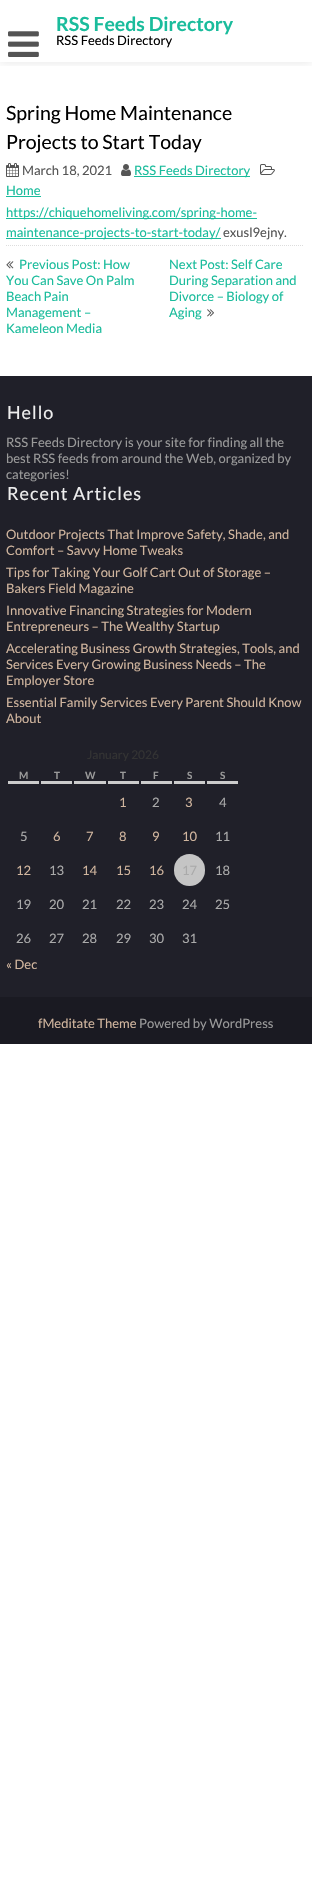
void draw(SkCanvas* canvas) {
    SkPaint paint;
    paint.setAntiAlias(true);
    auto spacedText = [&](const char* s, float x, float y, const SkFont& font, const SkPaint& ink, float letter, float word) {
        std::vector<SkGlyphID> glyphs(font.countText(s, strlen(s), SkTextEncoding::kUTF8));
        std::vector<float> xs(glyphs.size());
        font.textToGlyphs(s, strlen(s), SkTextEncoding::kUTF8, glyphs);
        font.getXPos(glyphs, xs, x);
        float extra = 0;
        for (size_t i = 0; i < glyphs.size(); i++) {
            xs[i] += extra;
            extra += letter + word * (glyphs[i] == font.unicharToGlyph(' '));
        }
        canvas->drawTextBlob(SkTextBlob::MakeFromPosHGlyphs(glyphs, xs, y, font), 0, 0, ink);
    };
    canvas->clear(0xFFFFFFFF);
    canvas->save();
    canvas->clipRect(SkRect::MakeXYWH(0, 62, 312, 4));
    paint.setColor(0x1A000000);
    paint.setMaskFilter(SkMaskFilter::MakeBlur(kNormal_SkBlurStyle, 5));
    canvas->drawRect(SkRect::MakeXYWH(0, 0, 312, 62), paint);
    paint.setMaskFilter(nullptr);
    canvas->restore();
    canvas->drawImageRect(SkImages::DeferredFromEncodedData(SkData::MakeFromFileName("img1.png")), SkRect::MakeXYWH(8, 31, 31, 26), SkSamplingOptions());
    SkFont font1(fontMgr->matchFamilyStyle("Lato", SkFontStyle::Bold()), 19.5f);
    font1.setSubpixel(true);
    paint.setColor(0xFF1ABC9C);
    canvas->drawString("RSS Feeds Directory", 56, 31, font1, paint);
    SkFont font2(fontMgr->matchFamilyStyle("Lato", SkFontStyle::Normal()), 13);
    font2.setSubpixel(true);
    paint.setColor(0xFF000000);
    canvas->drawString("RSS Feeds Directory", 56, 45, font2, paint);
    SkFont font3(fontMgr->matchFamilyStyle("Lato", SkFontStyle::Normal()), 19.5f);
    font3.setSubpixel(true);
    canvas->drawString("Spring Home Maintenance", 6, 120, font3, paint);
    canvas->drawString("Projects to Start Today", 6, 149, font3, paint);
    canvas->drawImageRect(SkImages::DeferredFromEncodedData(SkData::MakeFromFileName("img2.png")), SkRect::MakeXYWH(6, 163, 13, 14), SkSamplingOptions());
    paint.setColor(0xFF555555);
    canvas->drawString("March 18, 2021", 22, 175, font2, paint);
    canvas->drawImageRect(SkImages::DeferredFromEncodedData(SkData::MakeFromFileName("img3.png")), SkRect::MakeXYWH(121, 164, 10, 12), SkSamplingOptions());
    paint.setColor(0xFF1ABC9C);
    canvas->drawRect(SkRect::MakeXYWH(134, 176, 116, 1), paint);
    canvas->drawString("RSS Feeds Directory", 134, 175, font2, paint);
    canvas->drawImageRect(SkImages::DeferredFromEncodedData(SkData::MakeFromFileName("img4.png")), SkRect::MakeXYWH(260, 164, 15, 11), SkSamplingOptions());
    canvas->drawString("Home", 6, 195, font2, paint);
    canvas->drawRect(SkRect::MakeXYWH(6, 196, 35, 1), paint);
    canvas->drawRect(SkRect::MakeXYWH(6, 218, 251, 1), paint);
    canvas->drawString("https://chiquehomeliving.com/spring-home-", 6, 217, font2, paint);
    canvas->drawRect(SkRect::MakeXYWH(6, 238, 215, 1), paint);
    canvas->drawString("maintenance-projects-to-start-today/", 6, 237, font2, paint);
    paint.setColor(0xFF555555);
    canvas->drawString("exusl9ejny.", 223, 237, font2, paint);
    paint.setStyle(SkPaint::kStroke_Style);
    paint.setStrokeWidth(1);
    paint.setColor(0xFFDDDDDD);
    paint.setPathEffect(SkDashPathEffect::Make({{1, 1}}, 0));
    canvas->drawPath(SkPathBuilder().moveTo(6, 245.5f).lineTo(303, 245.5f).detach(), paint);
    paint.setPathEffect(nullptr);
    canvas->drawImageRect(SkImages::DeferredFromEncodedData(SkData::MakeFromFileName("img5.png")), SkRect::MakeXYWH(6, 261, 8, 8), SkSamplingOptions());
    paint.setStyle(SkPaint::kFill_Style);
    paint.setColor(0xFF1ABC9C);
    canvas->drawString("Previous Post: How", 19, 269, font2, paint);
    canvas->drawString("You Can Save On Palm", 6, 285, font2, paint);
    canvas->drawString("Beach Pain", 6, 301, font2, paint);
    canvas->drawString("Management –", 6, 317, font2, paint);
    canvas->drawString("Kameleon Media", 6, 333, font2, paint);
    canvas->drawString("Next Post: Self Care", 169, 269, font2, paint);
    canvas->drawString("During Separation and", 169, 285, font2, paint);
    canvas->drawString("Divorce – Biology of", 169, 301, font2, paint);
    canvas->drawString("Aging", 169, 317, font2, paint);
    canvas->drawImageRect(SkImages::DeferredFromEncodedData(SkData::MakeFromFileName("img6.png")), SkRect::MakeXYWH(207, 309, 7, 8), SkSamplingOptions());
    paint.setColor(0xFF202029);
    canvas->drawRect(SkRect::MakeXYWH(0, 376, 312, 621), paint);
    SkFont font4(fontMgr->matchFamilyStyle("Lato", SkFontStyle::Normal()), 18);
    font4.setSubpixel(true);
    paint.setColor(0xFFEEEEEE);
    spacedText("Hello", 7, 419, font4, paint, 1, 0);
    paint.setColor(0xFF9A9A9A);
    canvas->drawString("RSS Feeds Directory is your site for finding all the", 6, 447, font2, paint);
    canvas->drawString("best RSS feeds from around the Web, organized by", 6, 463, font2, paint);
    canvas->drawString("categories!", 6, 479, font2, paint);
    paint.setColor(0xFFEEEEEE);
    spacedText("Recent Articles", 7, 500, font4, paint, 1, 0);
    paint.setColor(0xFFD0B59E);
    canvas->drawString("Outdoor Projects That Improve Safety, Shade, and", 6, 539, font2, paint);
    canvas->drawString("Comfort – Savvy Home Tweaks", 6, 555, font2, paint);
    canvas->drawString("Tips for Taking Your Golf Cart Out of Storage –", 6, 577, font2, paint);
    canvas->drawString("Bakers Field Magazine", 6, 593, font2, paint);
    canvas->drawString("Innovative Financing Strategies for Modern", 6, 615, font2, paint);
    canvas->drawString("Entrepreneurs – The Wealthy Startup", 6, 631, font2, paint);
    canvas->drawString("Accelerating Business Growth Strategies, Tools, and", 6, 653, font2, paint);
    canvas->drawString("Services Every Growing Business Needs – The", 6, 669, font2, paint);
    canvas->drawString("Employer Store", 6, 685, font2, paint);
    canvas->drawString("Essential Family Services Every Parent Should Know", 6, 707, font2, paint);
    canvas->drawString("About", 6, 723, font2, paint);
    SkFont font5(fontMgr->matchFamilyStyle("Lato", SkFontStyle::Normal()), 12);
    font5.setSubpixel(true);
    paint.setColor(0xFF333333);
    canvas->drawString("January 2026", 87, 759, font5, paint);
    paint.setColor(0xFFCCCCCC);
    canvas->drawRect(SkRect::MakeXYWH(8, 781, 31, 3), paint);
    SkFont font6(fontMgr->matchFamilyStyle("Lato", SkFontStyle::Bold()), 10);
    font6.setSubpixel(true);
    paint.setColor(0xFF9A9A9A);
    canvas->drawString("M", 19, 779, font6, paint);
    paint.setColor(0xFFCCCCCC);
    canvas->drawRect(SkRect::MakeXYWH(41, 781, 31, 3), paint);
    paint.setColor(0xFF9A9A9A);
    canvas->drawString("T", 54, 779, font6, paint);
    paint.setColor(0xFFCCCCCC);
    canvas->drawRect(SkRect::MakeXYWH(74, 781, 32, 3), paint);
    paint.setColor(0xFF9A9A9A);
    canvas->drawString("W", 85, 779, font6, paint);
    paint.setColor(0xFFCCCCCC);
    canvas->drawRect(SkRect::MakeXYWH(108, 781, 31, 3), paint);
    paint.setColor(0xFF9A9A9A);
    canvas->drawString("T", 120, 779, font6, paint);
    paint.setColor(0xFFCCCCCC);
    canvas->drawRect(SkRect::MakeXYWH(141, 781, 31, 3), paint);
    paint.setColor(0xFF9A9A9A);
    canvas->drawString("F", 153, 779, font6, paint);
    paint.setColor(0xFFCCCCCC);
    canvas->drawRect(SkRect::MakeXYWH(174, 781, 31, 3), paint);
    paint.setColor(0xFF9A9A9A);
    canvas->drawString("S", 187, 779, font6, paint);
    paint.setColor(0xFFCCCCCC);
    canvas->drawRect(SkRect::MakeXYWH(207, 781, 31, 3), paint);
    paint.setColor(0xFF9A9A9A);
    canvas->drawString("S", 220, 779, font6, paint);
    paint.setColor(0xFFD0B59E);
    canvas->drawString("1", 119, 807, font2, paint);
    paint.setColor(0xFFAAAAAA);
    canvas->drawString("2", 152, 807, font2, paint);
    paint.setColor(0xFFD0B59E);
    canvas->drawString("3", 185, 807, font2, paint);
    paint.setColor(0xFFAAAAAA);
    canvas->drawString("4", 219, 807, font2, paint);
    canvas->drawString("5", 20, 841, font2, paint);
    paint.setColor(0xFFD0B59E);
    canvas->drawString("6", 53, 841, font2, paint);
    canvas->drawString("7", 86, 841, font2, paint);
    canvas->drawString("8", 119, 841, font2, paint);
    canvas->drawString("9", 152, 841, font2, paint);
    canvas->drawString("10", 182, 841, font2, paint);
    paint.setColor(0xFFAAAAAA);
    canvas->drawString("11", 215, 841, font2, paint);
    paint.setColor(0xFFD0B59E);
    canvas->drawString("12", 16, 875, font2, paint);
    paint.setColor(0xFFAAAAAA);
    canvas->drawString("13", 49, 875, font2, paint);
    paint.setColor(0xFFD0B59E);
    canvas->drawString("14", 82, 875, font2, paint);
    canvas->drawString("15", 116, 875, font2, paint);
    canvas->drawString("16", 149, 875, font2, paint);
    paint.setColor(0xFFC5C5C5);
    canvas->drawRoundRect(SkRect::MakeXYWH(174, 854, 31, 32), 15.5f, 15.5f, paint);
    paint.setColor(0xFFAAAAAA);
    canvas->drawString("17", 182, 875, font2, paint);
    canvas->drawString("18", 215, 875, font2, paint);
    canvas->drawString("19", 16, 909, font2, paint);
    canvas->drawString("20", 49, 909, font2, paint);
    canvas->drawString("21", 82, 909, font2, paint);
    canvas->drawString("22", 116, 909, font2, paint);
    canvas->drawString("23", 149, 909, font2, paint);
    canvas->drawString("24", 182, 909, font2, paint);
    canvas->drawString("25", 215, 909, font2, paint);
    canvas->drawString("26", 16, 943, font2, paint);
    canvas->drawString("27", 49, 943, font2, paint);
    canvas->drawString("28", 82, 943, font2, paint);
    canvas->drawString("29", 116, 943, font2, paint);
    canvas->drawString("30", 149, 943, font2, paint);
    canvas->drawString("31", 182, 943, font2, paint);
    paint.setColor(0xFFD0B59E);
    canvas->drawString("« Dec", 6, 969, font2, paint);
    paint.setColor(0xFF1A1A22);
    canvas->drawRect(SkRect::MakeXYWH(0, 997, 312, 47), paint);
    paint.setColor(0xFFD0B59E);
    canvas->drawString("fMeditate Theme", 38, 1028, font2, paint);
    paint.setColor(0xFF9A9A9A);
    canvas->drawString("Powered by WordPress", 139, 1028, font2, paint);
}
